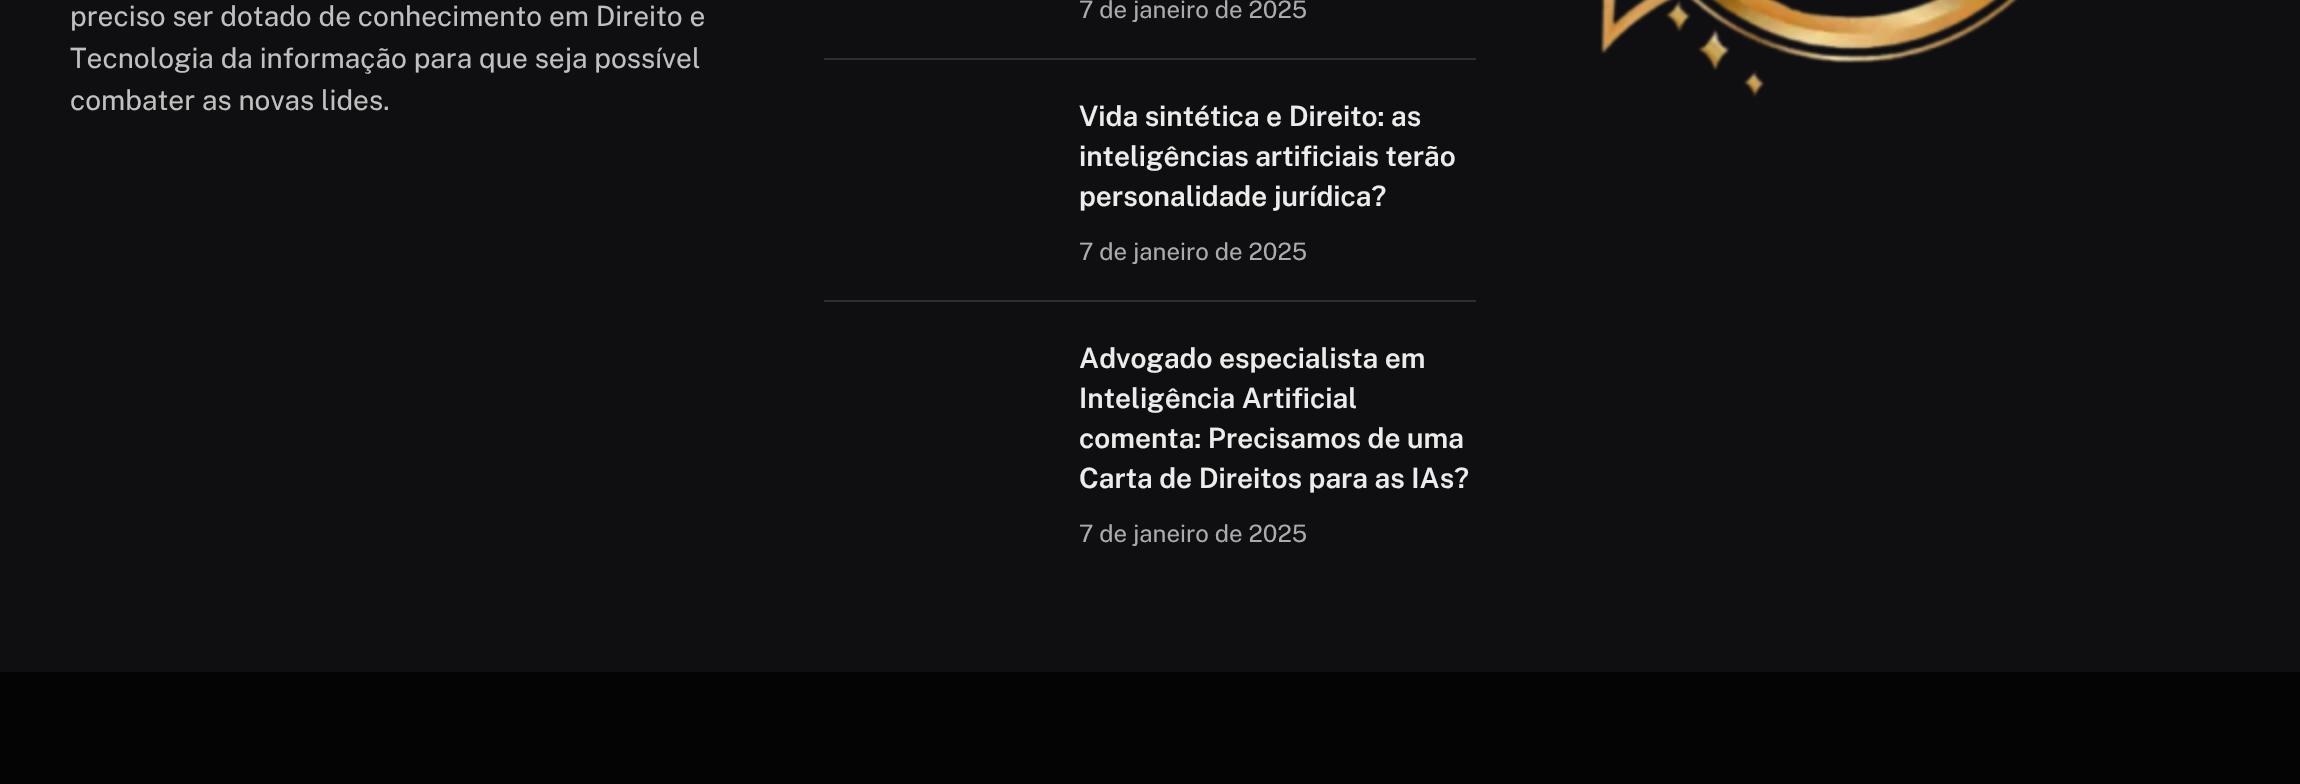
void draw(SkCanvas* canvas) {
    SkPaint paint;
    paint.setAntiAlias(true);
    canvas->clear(0xFF0F0F11);
    SkFont font1(fontMgr->matchFamilyStyle("Public Sans", SkFontStyle::Normal()), 28);
    font1.setSubpixel(true);
    paint.setColor(0xFFC0C0C0);
    canvas->drawString("preciso ser dotado de conhecimento em Direito e", 70, 26, font1, paint);
    canvas->drawString("Tecnologia da informação para que seja possível", 70, 68, font1, paint);
    canvas->drawString("combater as novas lides.", 70, 110, font1, paint);
    SkFont font2(fontMgr->matchFamilyStyle("Public Sans", SkFontStyle::Normal()), 24);
    font2.setSubpixel(true);
    paint.setColor(0xFFABABAC);
    canvas->drawString("7 de janeiro de 2025", 1079, 18, font2, paint);
    paint.setColor(0xFF2E2E30);
    canvas->drawRect(SkRect::MakeXYWH(824, 58, 652, 2), paint);
    SkFont font3(fontMgr->matchFamilyStyle("Public Sans", SkFontStyle(600, SkFontStyle::kNormal_Width, SkFontStyle::kUpright_Slant)), 28);
    font3.setSubpixel(true);
    paint.setColor(0xFFECECEC);
    canvas->drawString("Vida sintética e Direito: as", 1079, 126, font3, paint);
    canvas->drawString("inteligências artificiais terão", 1079, 166, font3, paint);
    canvas->drawString("personalidade jurídica?", 1079, 206, font3, paint);
    paint.setColor(0xFFABABAC);
    canvas->drawString("7 de janeiro de 2025", 1079, 260, font2, paint);
    paint.setColor(0xFF2E2E30);
    canvas->drawRect(SkRect::MakeXYWH(824, 300, 652, 2), paint);
    paint.setColor(0xFFECECEC);
    canvas->drawString("Advogado especialista em", 1079, 368, font3, paint);
    canvas->drawString("Inteligência Artificial", 1079, 408, font3, paint);
    canvas->drawString("comenta: Precisamos de uma", 1079, 448, font3, paint);
    canvas->drawString("Carta de Direitos para as IAs?", 1079, 488, font3, paint);
    paint.setColor(0xFFABABAC);
    canvas->drawString("7 de janeiro de 2025", 1079, 542, font2, paint);
    canvas->drawImageRect(SkImages::DeferredFromEncodedData(SkData::MakeFromFileName("img1.png")), SkRect::MakeXYWH(1600, 0, 418, 98), SkSamplingOptions());
    paint.setColor(0xFF040404);
    canvas->drawRect(SkRect::MakeXYWH(0, 672, 2300, 112), paint);
}
